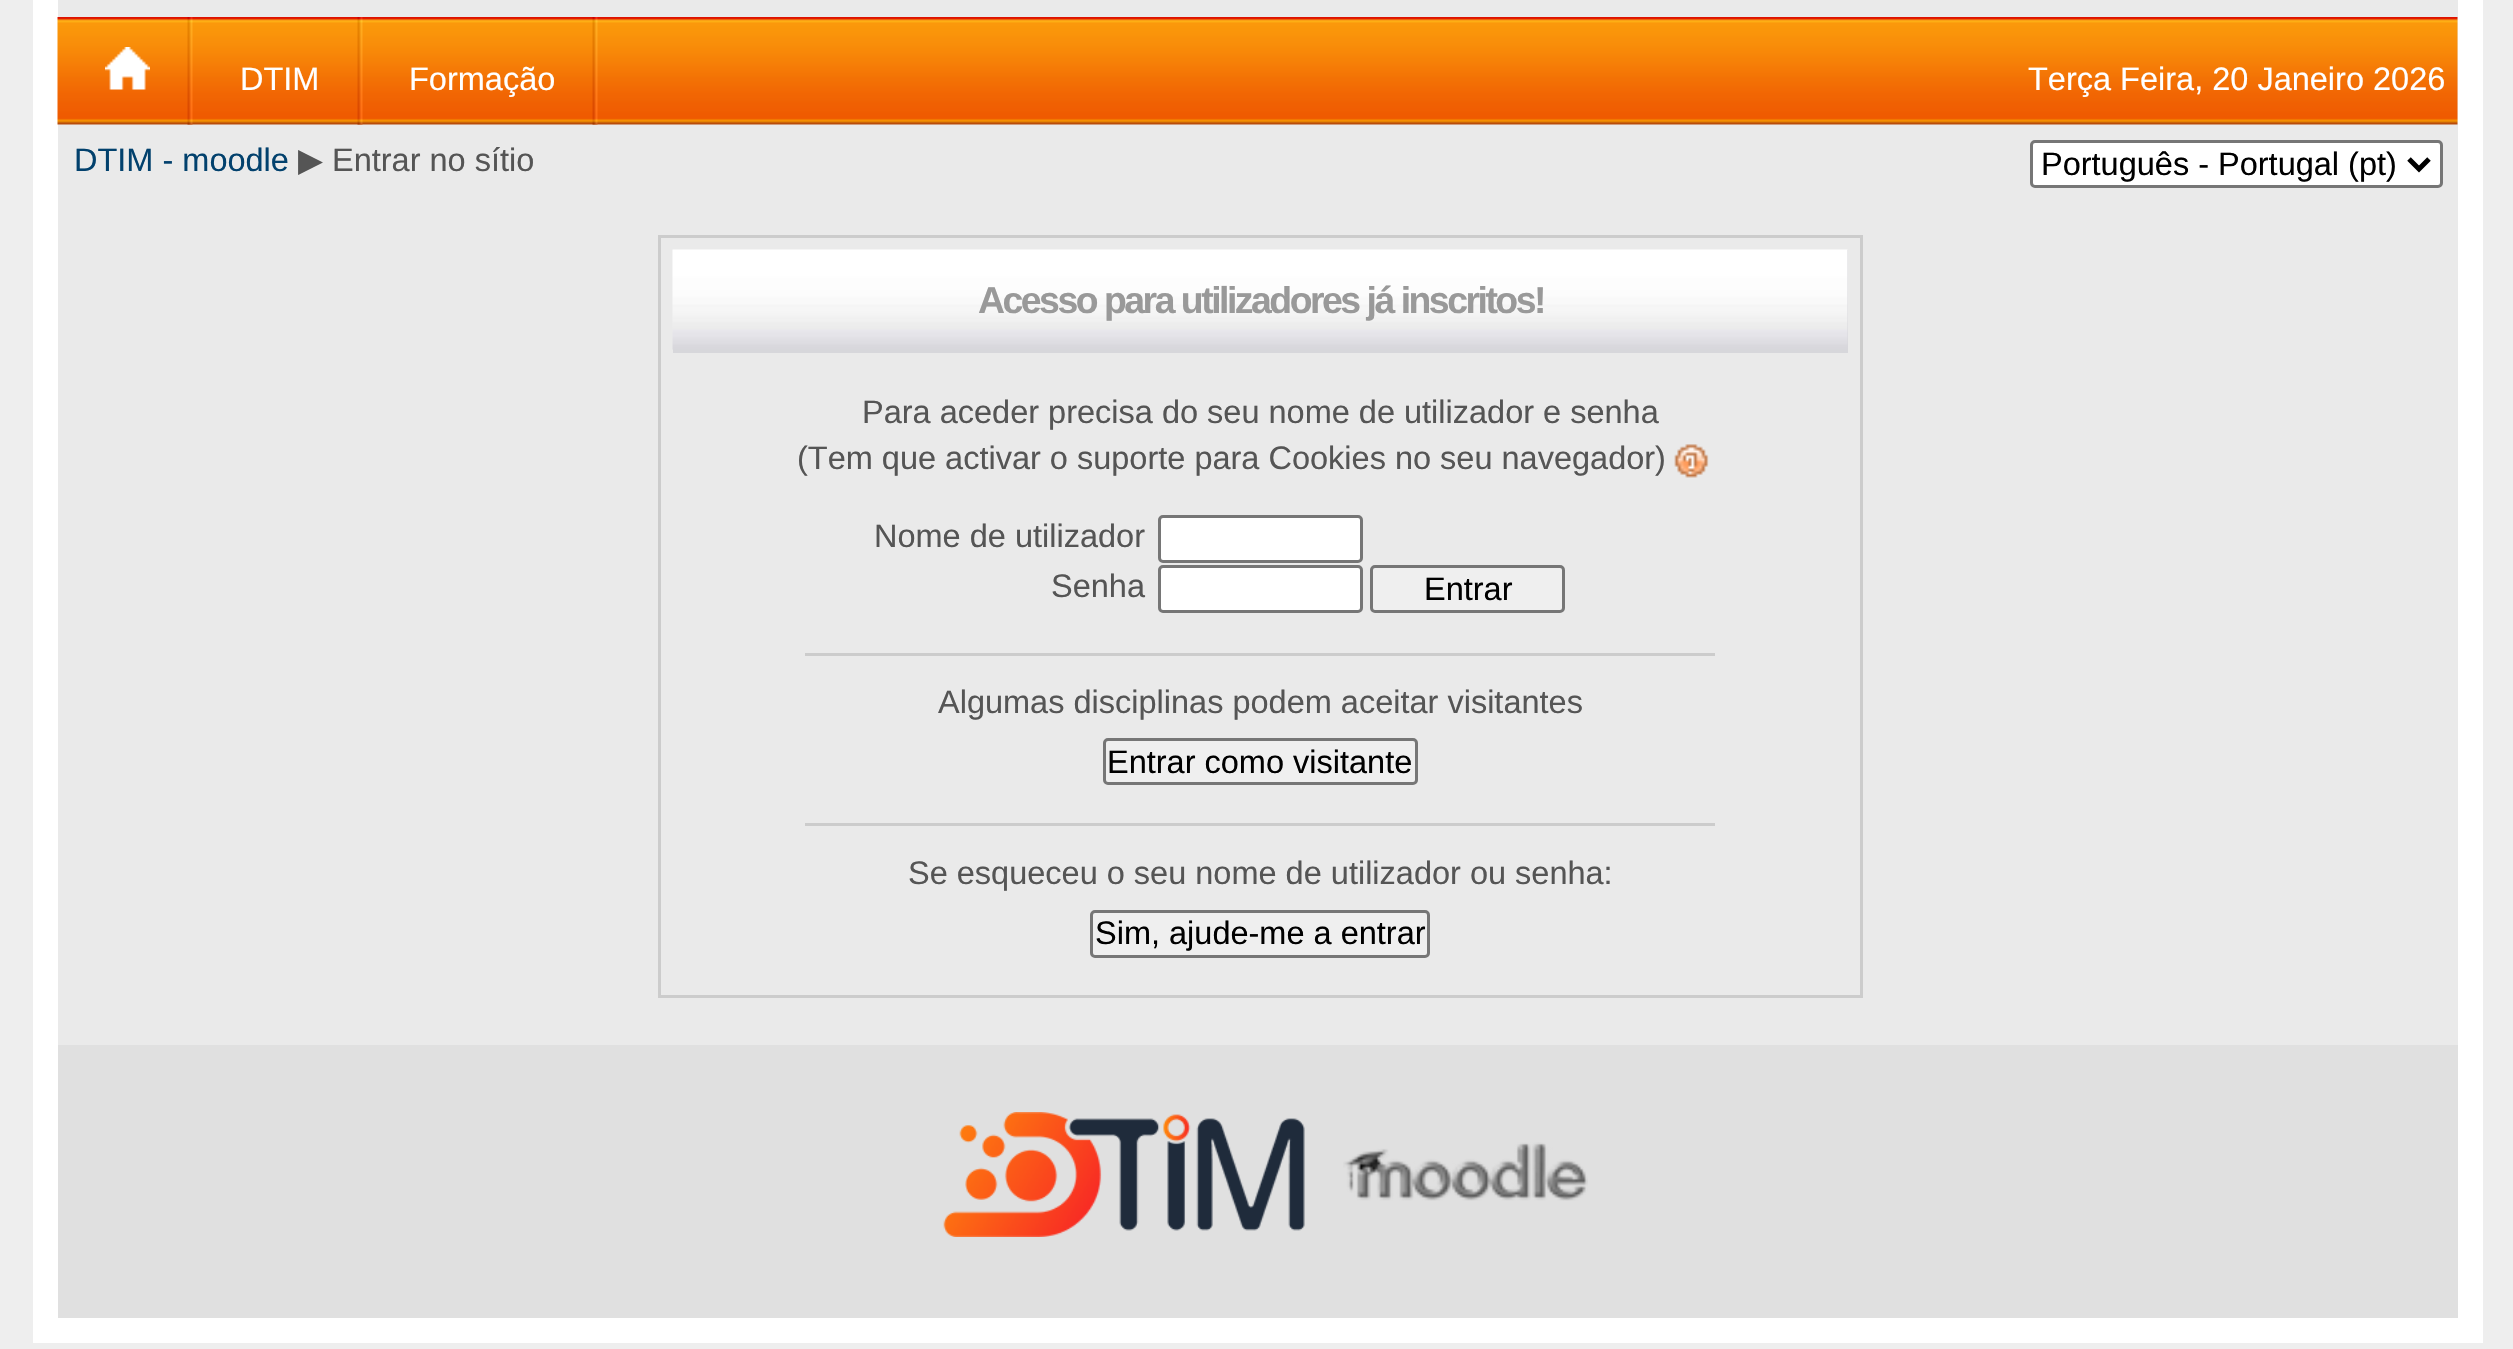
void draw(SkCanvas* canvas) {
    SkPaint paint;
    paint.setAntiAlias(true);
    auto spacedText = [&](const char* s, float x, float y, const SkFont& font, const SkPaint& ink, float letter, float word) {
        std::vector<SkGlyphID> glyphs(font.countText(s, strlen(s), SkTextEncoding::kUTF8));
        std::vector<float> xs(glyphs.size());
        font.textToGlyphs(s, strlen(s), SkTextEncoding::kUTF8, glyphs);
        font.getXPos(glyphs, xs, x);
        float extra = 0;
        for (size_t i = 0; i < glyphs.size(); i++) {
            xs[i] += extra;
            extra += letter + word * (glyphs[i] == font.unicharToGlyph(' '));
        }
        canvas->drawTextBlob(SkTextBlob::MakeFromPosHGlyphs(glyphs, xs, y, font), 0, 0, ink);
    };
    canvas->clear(0xFFEEEEEE);
    paint.setColor(0xFFEAEAEA);
    canvas->drawRect(SkRect::MakeXYWH(58, 0, 2400, 1045), paint);
    paint.setStyle(SkPaint::kStroke_Style);
    paint.setStrokeWidth(25);
    paint.setColor(0xFFFFFFFF);
    canvas->drawRect(SkRect::MakeXYWH(45.5f, -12.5f, 2425, 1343), paint);
    canvas->drawImageRect(SkImages::DeferredFromEncodedData(SkData::MakeFromFileName("img1.png")), SkRect::MakeXYWH(57, 17, 2401, 108), SkSamplingOptions());
    canvas->drawImageRect(SkImages::DeferredFromEncodedData(SkData::MakeFromFileName("img2.png")), SkRect::MakeXYWH(187, 17, 6, 108), SkSamplingOptions());
    canvas->drawImageRect(SkImages::DeferredFromEncodedData(SkData::MakeFromFileName("img3.png")), SkRect::MakeXYWH(105, 47, 45, 43), SkSamplingOptions());
    canvas->drawImageRect(SkImages::DeferredFromEncodedData(SkData::MakeFromFileName("img2.png")), SkRect::MakeXYWH(357, 17, 6, 108), SkSamplingOptions());
    SkFont font1(fontMgr->matchFamilyStyle("Liberation Sans", SkFontStyle::Normal()), 32.5f);
    font1.setSubpixel(true);
    paint.setStyle(SkPaint::kFill_Style);
    canvas->drawString("DTIM", 240, 90, font1, paint);
    canvas->drawImageRect(SkImages::DeferredFromEncodedData(SkData::MakeFromFileName("img2.png")), SkRect::MakeXYWH(592, 17, 6, 108), SkSamplingOptions());
    canvas->drawString("Formação", 409, 90, font1, paint);
    canvas->drawString("Terça Feira, 20 Janeiro 2026", 2028, 90, font1, paint);
    paint.setColor(0xFF02416D);
    canvas->drawString("DTIM - moodle", 74, 171, font1, paint);
    SkFont font2(fontMgr->matchFamilyStyle("DejaVu Sans", SkFontStyle::Normal()), 32.5f);
    font2.setSubpixel(true);
    paint.setColor(0xFF555555);
    canvas->drawString("▶", 298, 171, font2, paint);
    canvas->drawString("Entrar no sítio", 332, 171, font1, paint);
    paint.setColor(0xFFFFFFFF);
    canvas->drawRoundRect(SkRect::MakeXYWH(2031.5f, 141.5f, 410, 45), 3.5f, 3.5f, paint);
    paint.setStyle(SkPaint::kStroke_Style);
    paint.setStrokeWidth(3);
    paint.setColor(0xFF767676);
    canvas->drawRoundRect(SkRect::MakeXYWH(2031.5f, 141.5f, 410, 45), 3.5f, 3.5f, paint);
    paint.setStrokeWidth(5);
    paint.setColor(0xFF000000);
    canvas->drawPath(SkPathBuilder().moveTo(2409, 159).lineTo(2419, 169).lineTo(2429, 159).detach(), paint);
    paint.setStyle(SkPaint::kFill_Style);
    canvas->drawString("Português - Portugal (pt)", 2041, 175, font1, paint);
    paint.setStyle(SkPaint::kStroke_Style);
    paint.setStrokeWidth(3);
    paint.setColor(0xFFCCCCCC);
    canvas->drawRect(SkRect::MakeXYWH(659.5f, 236.5f, 1202, 760), paint);
    paint.setStyle(SkPaint::kFill_Style);
    paint.setColor(0xFFD7D7DB);
    canvas->drawRect(SkRect::MakeXYWH(673, 250, 1175, 103), paint);
    canvas->drawImageRect(SkImages::DeferredFromEncodedData(SkData::MakeFromFileName("img4.png")), SkRect::MakeXYWH(672, 249, 1176, 101), SkSamplingOptions());
    SkFont font3(fontMgr->matchFamilyStyle("Liberation Sans", SkFontStyle::Bold()), 37.4f);
    font3.setSubpixel(true);
    paint.setColor(0xFF999999);
    spacedText("Acesso para utilizadores já inscritos!", 978, 313, font3, paint, -2.5f, 0);
    paint.setColor(0xFF555555);
    canvas->drawString("Para aceder precisa do seu nome de utilizador e senha", 862, 423, font1, paint);
    canvas->drawString("(Tem que activar o suporte para Cookies no seu navegador)", 797, 469, font1, paint);
    canvas->drawImageRect(SkImages::DeferredFromEncodedData(SkData::MakeFromFileName("img5.png")), SkRect::MakeXYWH(1674, 444, 35, 34), SkSamplingOptions());
    canvas->drawString("Nome de utilizador", 874, 547, font1, paint);
    paint.setColor(0xFFFFFFFF);
    canvas->drawRoundRect(SkRect::MakeXYWH(1159.5f, 516.5f, 202, 45), 3.5f, 3.5f, paint);
    paint.setStyle(SkPaint::kStroke_Style);
    paint.setColor(0xFF767676);
    canvas->drawRoundRect(SkRect::MakeXYWH(1159.5f, 516.5f, 202, 45), 3.5f, 3.5f, paint);
    paint.setStyle(SkPaint::kFill_Style);
    paint.setColor(0xFF555555);
    canvas->drawString("Senha", 1051, 597, font1, paint);
    paint.setColor(0xFFFFFFFF);
    canvas->drawRoundRect(SkRect::MakeXYWH(1159.5f, 566.5f, 202, 45), 3.5f, 3.5f, paint);
    paint.setStyle(SkPaint::kStroke_Style);
    paint.setColor(0xFF767676);
    canvas->drawRoundRect(SkRect::MakeXYWH(1159.5f, 566.5f, 202, 45), 3.5f, 3.5f, paint);
    paint.setStyle(SkPaint::kFill_Style);
    paint.setColor(0xFFEFEFEF);
    canvas->drawRoundRect(SkRect::MakeXYWH(1371.5f, 566.5f, 192, 45), 3.5f, 3.5f, paint);
    paint.setStyle(SkPaint::kStroke_Style);
    paint.setColor(0xFF767676);
    canvas->drawRoundRect(SkRect::MakeXYWH(1371.5f, 566.5f, 192, 45), 3.5f, 3.5f, paint);
    paint.setStyle(SkPaint::kFill_Style);
    paint.setColor(0xFF000000);
    canvas->drawString("Entrar", 1424, 600, font1, paint);
    paint.setColor(0xFFCCCCCC);
    canvas->drawRect(SkRect::MakeXYWH(805, 653, 910, 3), paint);
    paint.setColor(0xFF555555);
    canvas->drawString("Algumas disciplinas podem aceitar visitantes", 938, 713, font1, paint);
    paint.setColor(0xFFEFEFEF);
    canvas->drawRoundRect(SkRect::MakeXYWH(1104.5f, 739.5f, 312, 44), 3.5f, 3.5f, paint);
    paint.setStyle(SkPaint::kStroke_Style);
    paint.setColor(0xFF767676);
    canvas->drawRoundRect(SkRect::MakeXYWH(1104.5f, 739.5f, 312, 44), 3.5f, 3.5f, paint);
    paint.setStyle(SkPaint::kFill_Style);
    paint.setColor(0xFF000000);
    canvas->drawString("Entrar como visitante", 1107, 773, font1, paint);
    paint.setColor(0xFFCCCCCC);
    canvas->drawRect(SkRect::MakeXYWH(805, 823, 910, 3), paint);
    paint.setColor(0xFF555555);
    canvas->drawString("Se esqueceu o seu nome de utilizador ou senha:", 908, 884, font1, paint);
    paint.setColor(0xFFEFEFEF);
    canvas->drawRoundRect(SkRect::MakeXYWH(1091.5f, 911.5f, 337, 45), 3.5f, 3.5f, paint);
    paint.setStyle(SkPaint::kStroke_Style);
    paint.setColor(0xFF767676);
    canvas->drawRoundRect(SkRect::MakeXYWH(1091.5f, 911.5f, 337, 45), 3.5f, 3.5f, paint);
    paint.setStyle(SkPaint::kFill_Style);
    paint.setColor(0xFF000000);
    canvas->drawString("Sim, ajude-me a entrar", 1095, 944, font1, paint);
    paint.setColor(0xFFE0E0E0);
    canvas->drawRect(SkRect::MakeXYWH(58, 1045, 2400, 273), paint);
    canvas->drawImageRect(SkImages::DeferredFromEncodedData(SkData::MakeFromFileName("img6.png")), SkRect::MakeXYWH(943, 1112, 362, 125), SkSamplingOptions());
    canvas->drawImageRect(SkImages::DeferredFromEncodedData(SkData::MakeFromFileName("img7.png")), SkRect::MakeXYWH(1343, 1142, 245, 59), SkSamplingOptions());
}
